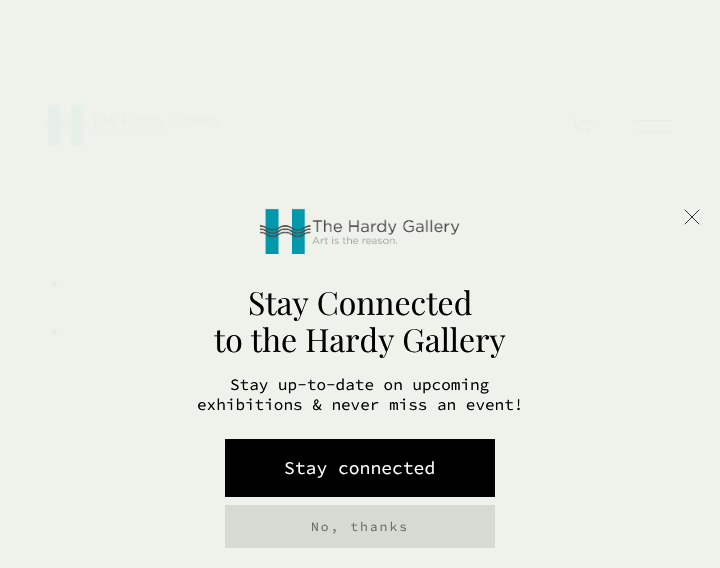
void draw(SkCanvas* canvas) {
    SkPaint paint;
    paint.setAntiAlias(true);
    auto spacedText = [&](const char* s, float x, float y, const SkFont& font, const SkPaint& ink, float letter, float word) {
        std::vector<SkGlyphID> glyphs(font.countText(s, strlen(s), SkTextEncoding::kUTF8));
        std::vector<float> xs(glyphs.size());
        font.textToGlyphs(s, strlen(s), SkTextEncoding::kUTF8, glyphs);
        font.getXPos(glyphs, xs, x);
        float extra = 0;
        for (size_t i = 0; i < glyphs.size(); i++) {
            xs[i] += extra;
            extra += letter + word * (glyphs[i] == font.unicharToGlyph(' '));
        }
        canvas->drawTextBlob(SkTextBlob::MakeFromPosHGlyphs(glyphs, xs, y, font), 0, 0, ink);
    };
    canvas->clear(0xFFEEF2EB);
    canvas->drawImageRect(SkImages::DeferredFromEncodedData(SkData::MakeFromFileName("img1.png")), SkRect::MakeXYWH(43, 105, 180, 41), SkSamplingOptions());
    canvas->drawImageRect(SkImages::DeferredFromEncodedData(SkData::MakeFromFileName("img2.png")), SkRect::MakeXYWH(570, 116, 24, 19), SkSamplingOptions());
    paint.setColor(0xFFE8EBE3);
    canvas->drawRect(SkRect::MakeXYWH(636, 120, 35, 1), paint);
    canvas->drawRect(SkRect::MakeXYWH(636, 131, 35, 1), paint);
    canvas->drawCircle(54.5f, 284.5f, 2.5f, paint);
    canvas->drawCircle(54.5f, 332.5f, 2.5f, paint);
    canvas->drawImageRect(SkImages::DeferredFromEncodedData(SkData::MakeFromFileName("img3.png")), SkRect::MakeXYWH(260, 208, 200, 46), SkSamplingOptions());
    paint.setStyle(SkPaint::kStroke_Style);
    paint.setStrokeWidth(0.8f);
    paint.setStrokeCap(SkPaint::kRound_Cap);
    paint.setColor(0xFF000000);
    canvas->drawPath(SkPathBuilder().moveTo(685, 210).lineTo(699, 224).moveTo(699, 210).lineTo(685, 224).detach(), paint);
    SkFont font1(fontMgr->matchFamilyStyle("Playfair Display", SkFontStyle::Normal()), 32);
    font1.setSubpixel(true);
    paint.setStyle(SkPaint::kFill_Style);
    canvas->drawString("Stay Connected", 248, 315, font1, paint);
    canvas->drawString("to the Hardy Gallery", 214, 352, font1, paint);
    SkFont font2(fontMgr->matchFamilyStyle("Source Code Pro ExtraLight", SkFontStyle(200, SkFontStyle::kNormal_Width, SkFontStyle::kUpright_Slant)), 16);
    font2.setSubpixel(true);
    canvas->drawString("Stay up-to-date on upcoming", 230, 390, font2, paint);
    canvas->drawString("exhibitions & never miss an event!", 197, 410, font2, paint);
    canvas->drawRect(SkRect::MakeXYWH(225, 439, 270, 58), paint);
    SkFont font3(fontMgr->matchFamilyStyle("Source Code Pro ExtraLight", SkFontStyle(200, SkFontStyle::kNormal_Width, SkFontStyle::kUpright_Slant)), 18);
    font3.setSubpixel(true);
    paint.setColor(0xFFFFFFFF);
    canvas->drawString("Stay connected", 284, 474, font3, paint);
    paint.setColor(0xFFD6DAD3);
    canvas->drawRect(SkRect::MakeXYWH(225, 505, 270, 43), paint);
    SkFont font4(fontMgr->matchFamilyStyle("Source Code Pro ExtraLight", SkFontStyle(200, SkFontStyle::kNormal_Width, SkFontStyle::kUpright_Slant)), 13);
    font4.setSubpixel(true);
    paint.setColor(0xFF6B6D6A);
    spacedText("No, thanks", 311, 531, font4, paint, 2, 0);
}
